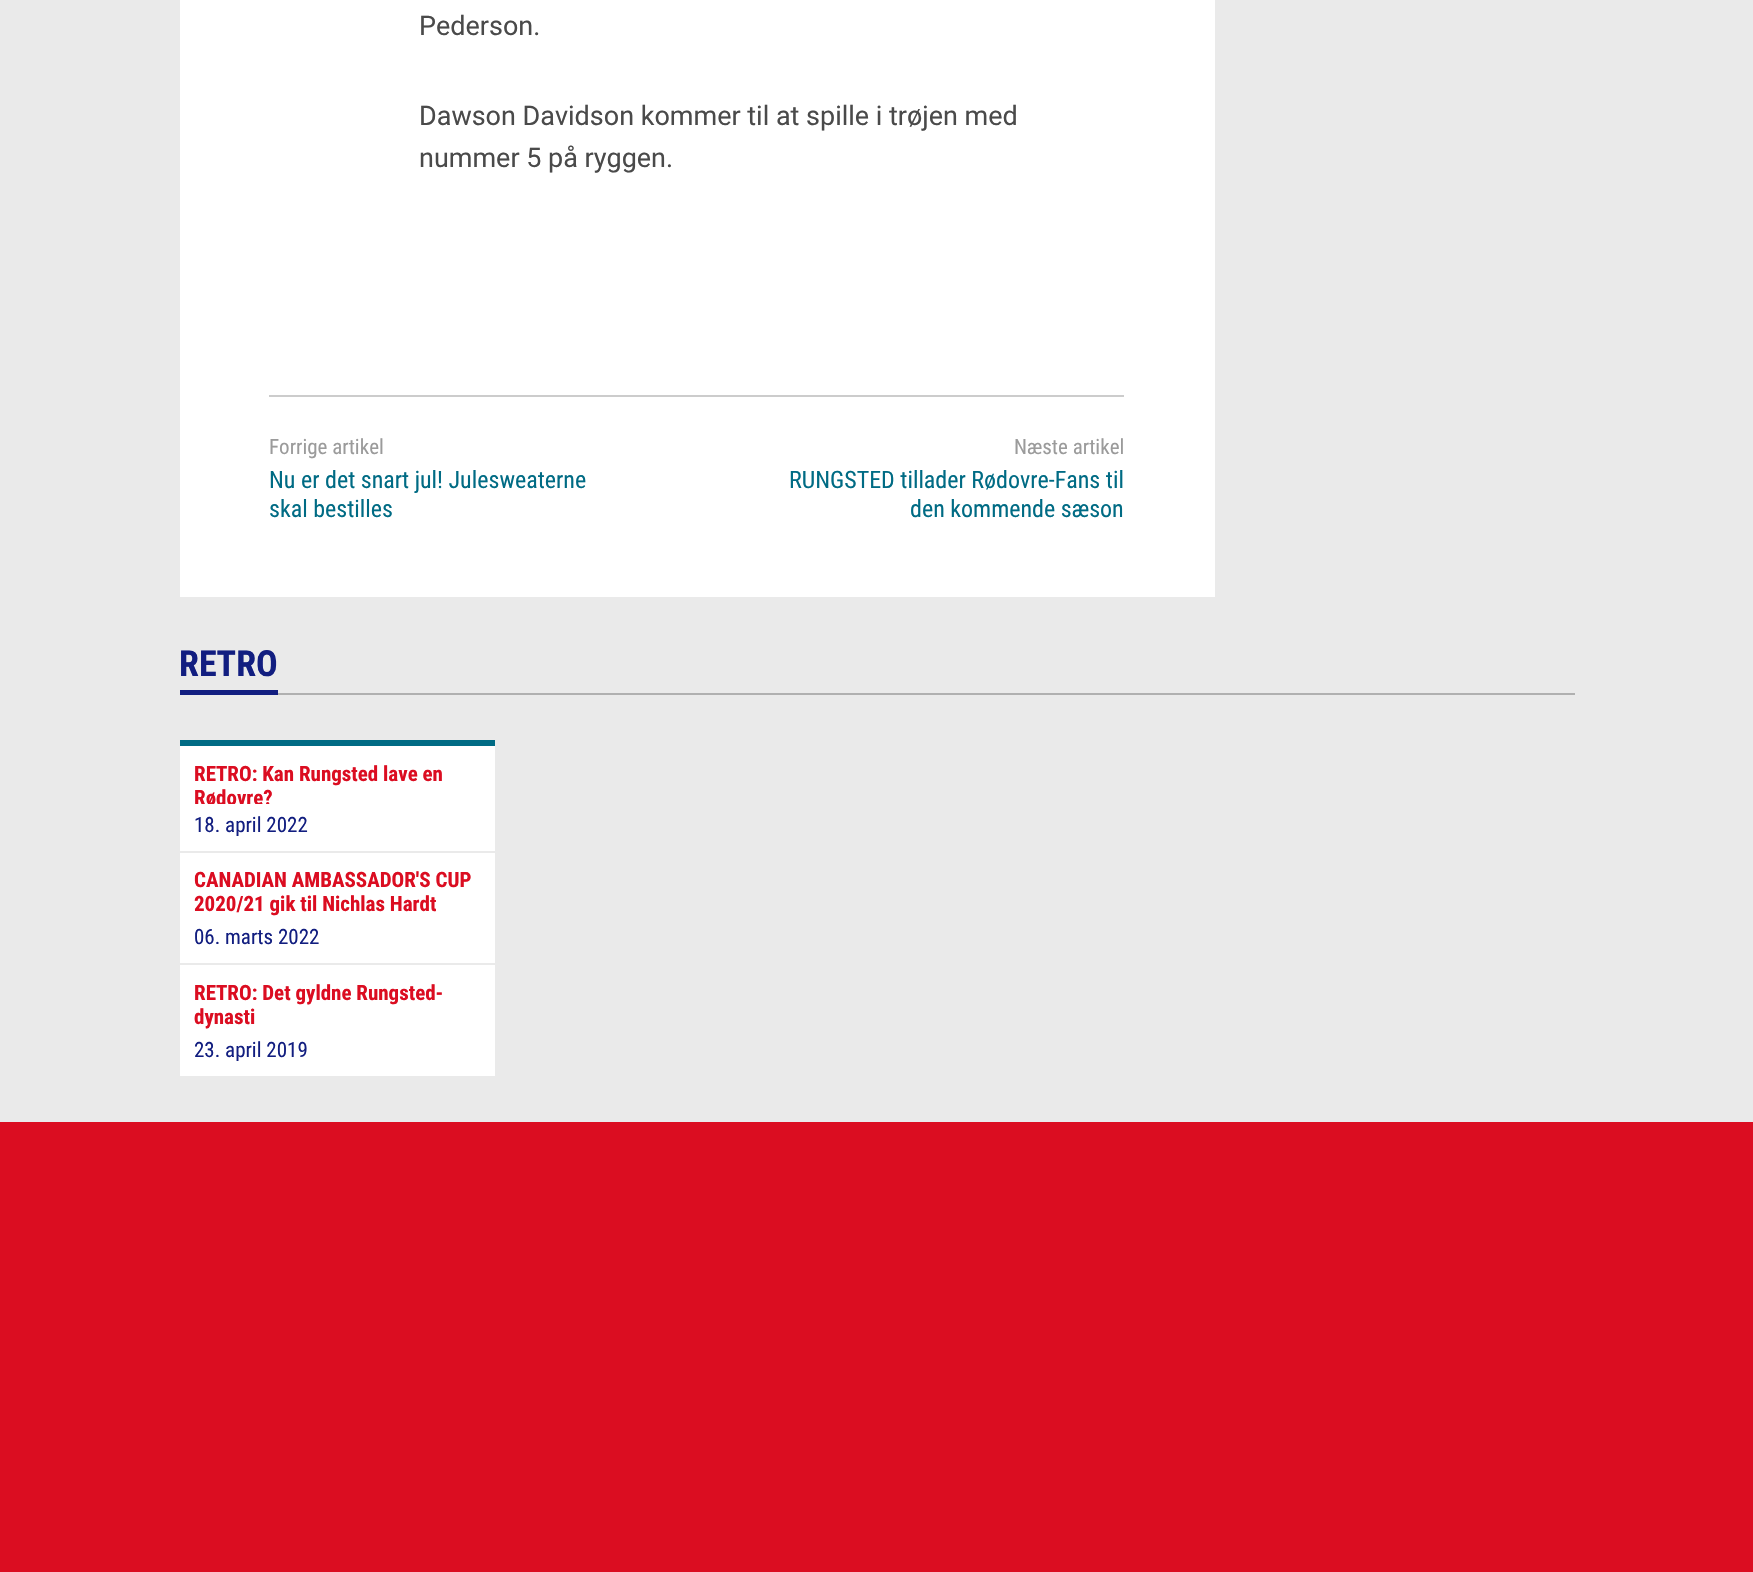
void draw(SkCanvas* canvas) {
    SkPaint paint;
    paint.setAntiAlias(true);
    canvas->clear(0xFFEAEAEA);
    paint.setColor(0xFFFFFFFF);
    canvas->drawRect(SkRect::MakeXYWH(180, 0, 1035, 597), paint);
    SkFont font1(fontMgr->matchFamilyStyle("Roboto", SkFontStyle::Normal()), 27);
    font1.setSubpixel(true);
    paint.setColor(0xFF4A4A4A);
    canvas->drawString("Pederson.", 419, 35, font1, paint);
    canvas->drawString("Dawson Davidson kommer til at spille i trøjen med", 419, 125, font1, paint);
    canvas->drawString("nummer 5 på ryggen.", 419, 167, font1, paint);
    paint.setColor(0xFFCCCCCC);
    canvas->drawRect(SkRect::MakeXYWH(269, 395, 855, 2), paint);
    SkFont font2(fontMgr->matchFamilyStyle("Roboto Condensed", SkFontStyle::Normal()), 21);
    font2.setSubpixel(true);
    paint.setColor(0xFF9B9B9B);
    canvas->drawString("Forrige artikel", 269, 454, font2, paint);
    SkFont font3(fontMgr->matchFamilyStyle("Roboto Condensed", SkFontStyle::Normal()), 24);
    font3.setSubpixel(true);
    paint.setColor(0xFF006B84);
    canvas->drawString("Nu er det snart jul! Julesweaterne", 269, 488, font3, paint);
    canvas->drawString("skal bestilles", 269, 517, font3, paint);
    paint.setColor(0xFF9B9B9B);
    canvas->drawString("Næste artikel", 1014, 454, font2, paint);
    paint.setColor(0xFF006B84);
    canvas->drawString("RUNGSTED tillader Rødovre-Fans til", 789, 488, font3, paint);
    canvas->drawString("den kommende sæson", 910, 517, font3, paint);
    paint.setColor(0xFF121E80);
    canvas->drawRect(SkRect::MakeXYWH(180, 690, 98, 5), paint);
    SkFont font4(fontMgr->matchFamilyStyle("Roboto Condensed", SkFontStyle::Bold()), 36);
    font4.setSubpixel(true);
    canvas->drawString("RETRO", 179, 676, font4, paint);
    paint.setColor(0xFFB0B0B0);
    canvas->drawRect(SkRect::MakeXYWH(278, 693, 1297, 2), paint);
    paint.setColor(0xFFFFFFFF);
    canvas->drawRect(SkRect::MakeXYWH(180, 746, 315, 330), paint);
    paint.setColor(0xFF006B84);
    canvas->drawRect(SkRect::MakeXYWH(180, 740, 315, 6), paint);
    paint.setColor(0xFFEAEAEA);
    canvas->drawRect(SkRect::MakeXYWH(180, 851, 315, 2), paint);
    SkFont font5(fontMgr->matchFamilyStyle("Roboto Condensed", SkFontStyle::Bold()), 21);
    font5.setSubpixel(true);
    paint.setColor(0xFFDB0D21);
    canvas->drawString("RETRO: Kan Rungsted lave en", 194, 781, font5, paint);
    canvas->save();
    canvas->clipRect(SkRect::MakeXYWH(195, 761, 285, 43));
    canvas->drawString("Rødovre?", 194, 805, font5, paint);
    canvas->restore();
    canvas->save();
    canvas->clipRect(SkRect::MakeXYWH(195, 761, 285, 75));
    paint.setColor(0xFF121E80);
    canvas->drawString("18. april 2022", 194, 832, font2, paint);
    canvas->restore();
    paint.setColor(0xFFEAEAEA);
    canvas->drawRect(SkRect::MakeXYWH(180, 963, 315, 2), paint);
    paint.setColor(0xFFDB0D21);
    canvas->drawString("CANADIAN AMBASSADOR'S CUP", 194, 887, font5, paint);
    canvas->drawString("2020/21 gik til Nichlas Hardt", 194, 911, font5, paint);
    paint.setColor(0xFF121E80);
    canvas->drawString("06. marts 2022", 194, 944, font2, paint);
    paint.setColor(0xFFDB0D21);
    canvas->drawString("RETRO: Det gyldne Rungsted-", 194, 1000, font5, paint);
    canvas->drawString("dynasti", 194, 1024, font5, paint);
    canvas->save();
    canvas->clipRect(SkRect::MakeXYWH(195, 980, 285, 81));
    paint.setColor(0xFF121E80);
    canvas->drawString("23. april 2019", 194, 1057, font2, paint);
    canvas->restore();
    paint.setColor(0xFFDB0D21);
    canvas->drawRect(SkRect::MakeXYWH(0, 1122, 1753, 450), paint);
}
